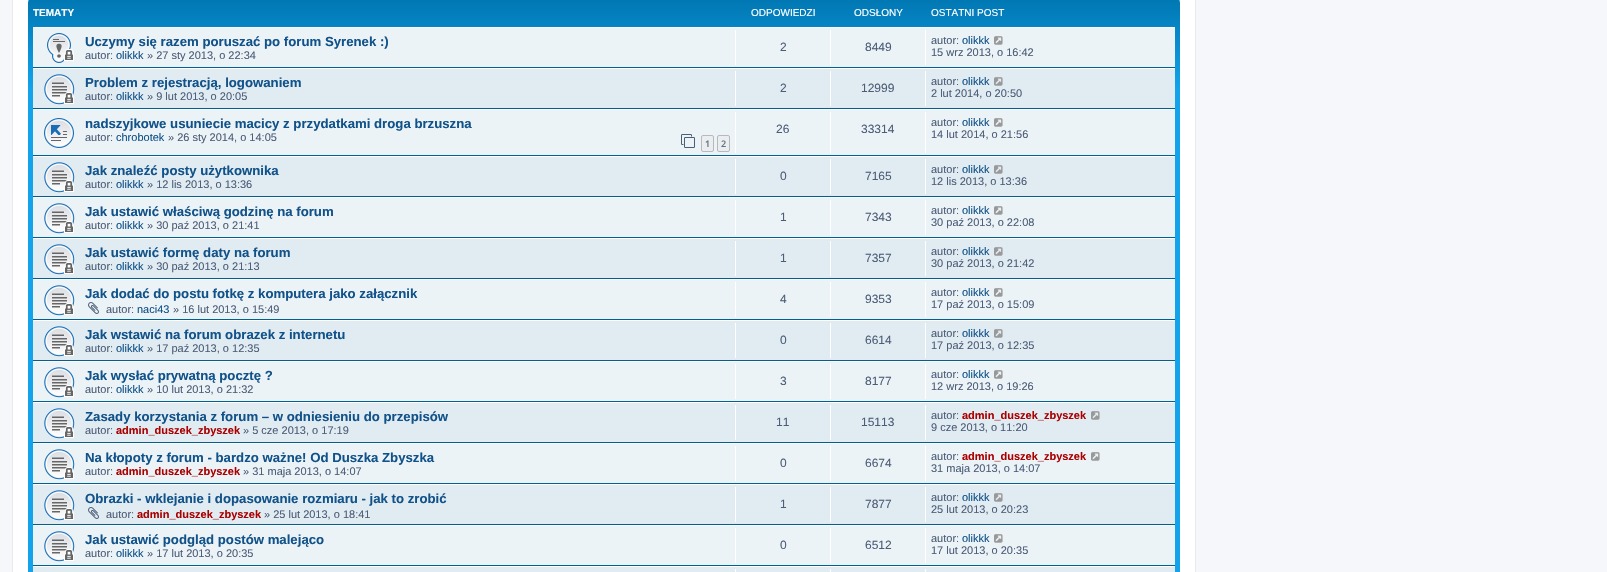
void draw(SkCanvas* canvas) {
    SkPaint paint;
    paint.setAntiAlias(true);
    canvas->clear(0xFFF5F7FA);
    paint.setColor(0xFFFFFFFF);
    canvas->drawRect(SkRect::MakeXYWH(12.5f, -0.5f, 1183, 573), paint);
    paint.setStyle(SkPaint::kStroke_Style);
    paint.setStrokeWidth(1);
    paint.setColor(0xFFE6E9ED);
    canvas->drawRect(SkRect::MakeXYWH(12.5f, -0.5f, 1183, 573), paint);
    paint.setStyle(SkPaint::kFill_Style);
    {
        const SkColor colors[] = {0xFF6ACEFF, 0xFF0076B1, 0xFF12A3EB, 0xFF12A3EB};
        const float stops[] = {0, 0, 0.12f, 1};
        const SkPoint ends[] = {{604, -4}, {604, 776}};
        paint.setShader(SkGradientShader::MakeLinear(ends, colors, stops, 4, SkTileMode::kClamp));
        paint.setAlpha(255);
    }
    canvas->drawRoundRect(SkRect::MakeXYWH(28, -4, 1152, 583), 7, 7, paint);
    SkFont font1(fontMgr->matchFamilyStyle("Liberation Sans", SkFontStyle::Bold()), 10);
    font1.setSubpixel(true);
    paint.setShader(nullptr);
    paint.setColor(0xFFFFFFFF);
    canvas->drawString("TEMATY", 33, 16, font1, paint);
    SkFont font2(fontMgr->matchFamilyStyle("Liberation Sans", SkFontStyle::Normal()), 10);
    font2.setSubpixel(true);
    canvas->drawString("ODPOWIEDZI", 751, 16, font2, paint);
    canvas->drawString("ODSŁONY", 854, 16, font2, paint);
    canvas->drawString("OSTATNI POST", 931, 16, font2, paint);
    paint.setColor(0xFFECF3F7);
    canvas->drawRect(SkRect::MakeXYWH(33, 28, 1142, 39), paint);
    paint.setColor(0xFFFFFFFF);
    canvas->drawRect(SkRect::MakeXYWH(33, 27, 1142, 1), paint);
    paint.setColor(0xFF00608F);
    canvas->drawRect(SkRect::MakeXYWH(33, 67, 1142, 1), paint);
    canvas->drawImageRect(SkImages::DeferredFromEncodedData(SkData::MakeFromFileName("img1.png")), SkRect::MakeXYWH(47, 33, 27, 30), SkSamplingOptions());
    SkFont font3(fontMgr->matchFamilyStyle("Liberation Sans", SkFontStyle::Bold()), 13.2f);
    font3.setSubpixel(true);
    paint.setColor(0xFF105289);
    canvas->drawString("Uczymy się razem poruszać po forum Syrenek :)", 85, 46, font3, paint);
    SkFont font4(fontMgr->matchFamilyStyle("Liberation Sans", SkFontStyle::Normal()), 11);
    font4.setSubpixel(true);
    paint.setColor(0xFF4C5D77);
    canvas->drawString("autor:", 85, 59, font4, paint);
    paint.setColor(0xFF105289);
    canvas->drawString("olikkk", 116, 59, font4, paint);
    paint.setColor(0xFF4C5D77);
    canvas->drawString("» 27 sty 2013, o 22:34", 147, 59, font4, paint);
    paint.setColor(0xFFFFFFFF);
    canvas->drawRect(SkRect::MakeXYWH(735, 30, 1, 35), paint);
    SkFont font5(fontMgr->matchFamilyStyle("Liberation Sans", SkFontStyle::Normal()), 12);
    font5.setSubpixel(true);
    paint.setColor(0xFF4C5D77);
    canvas->drawString("2", 780, 51, font5, paint);
    paint.setColor(0xFFFFFFFF);
    canvas->drawRect(SkRect::MakeXYWH(830, 30, 1, 35), paint);
    paint.setColor(0xFF4C5D77);
    canvas->drawString("8449", 865, 51, font5, paint);
    paint.setColor(0xFFFFFFFF);
    canvas->drawRect(SkRect::MakeXYWH(925, 30, 1, 35), paint);
    paint.setColor(0xFF4C5D77);
    canvas->drawString("autor:", 931, 44, font4, paint);
    paint.setColor(0xFF105289);
    canvas->drawString("olikkk", 962, 44, font4, paint);
    canvas->drawImageRect(SkImages::DeferredFromEncodedData(SkData::MakeFromFileName("img2.png")), SkRect::MakeXYWH(994, 36, 9, 9), SkSamplingOptions());
    paint.setColor(0xFF4C5D77);
    canvas->drawString("15 wrz 2013, o 16:42", 931, 56, font4, paint);
    paint.setColor(0xFFE1EBF2);
    canvas->drawRect(SkRect::MakeXYWH(33, 69, 1142, 39), paint);
    paint.setColor(0xFFFFFFFF);
    canvas->drawRect(SkRect::MakeXYWH(33, 68, 1142, 1), paint);
    paint.setColor(0xFF00608F);
    canvas->drawRect(SkRect::MakeXYWH(33, 108, 1142, 1), paint);
    canvas->drawImageRect(SkImages::DeferredFromEncodedData(SkData::MakeFromFileName("img3.png")), SkRect::MakeXYWH(44, 74, 31, 31), SkSamplingOptions());
    paint.setColor(0xFF105289);
    canvas->drawString("Problem z rejestracją, logowaniem", 85, 87, font3, paint);
    paint.setColor(0xFF4C5D77);
    canvas->drawString("autor:", 85, 100, font4, paint);
    paint.setColor(0xFF105289);
    canvas->drawString("olikkk", 116, 100, font4, paint);
    paint.setColor(0xFF4C5D77);
    canvas->drawString("» 9 lut 2013, o 20:05", 147, 100, font4, paint);
    paint.setColor(0xFFFFFFFF);
    canvas->drawRect(SkRect::MakeXYWH(735, 71, 1, 35), paint);
    paint.setColor(0xFF4C5D77);
    canvas->drawString("2", 780, 92, font5, paint);
    paint.setColor(0xFFFFFFFF);
    canvas->drawRect(SkRect::MakeXYWH(830, 71, 1, 35), paint);
    paint.setColor(0xFF4C5D77);
    canvas->drawString("12999", 861, 92, font5, paint);
    paint.setColor(0xFFFFFFFF);
    canvas->drawRect(SkRect::MakeXYWH(925, 71, 1, 35), paint);
    paint.setColor(0xFF4C5D77);
    canvas->drawString("autor:", 931, 85, font4, paint);
    paint.setColor(0xFF105289);
    canvas->drawString("olikkk", 962, 85, font4, paint);
    canvas->drawImageRect(SkImages::DeferredFromEncodedData(SkData::MakeFromFileName("img4.png")), SkRect::MakeXYWH(994, 77, 9, 9), SkSamplingOptions());
    paint.setColor(0xFF4C5D77);
    canvas->drawString("2 lut 2014, o 20:50", 931, 97, font4, paint);
    paint.setColor(0xFFECF3F7);
    canvas->drawRect(SkRect::MakeXYWH(33, 110, 1142, 45), paint);
    paint.setColor(0xFFFFFFFF);
    canvas->drawRect(SkRect::MakeXYWH(33, 109, 1142, 1), paint);
    paint.setColor(0xFF00608F);
    canvas->drawRect(SkRect::MakeXYWH(33, 155, 1142, 1), paint);
    canvas->drawImageRect(SkImages::DeferredFromEncodedData(SkData::MakeFromFileName("img5.png")), SkRect::MakeXYWH(44, 118, 30, 30), SkSamplingOptions());
    paint.setColor(0xFF105289);
    canvas->drawString("nadszyjkowe usuniecie macicy z przydatkami droga brzuszna", 85, 128, font3, paint);
    paint.setColor(0xFF4C5D77);
    canvas->drawString("autor:", 85, 141, font4, paint);
    paint.setColor(0xFF105289);
    canvas->drawString("chrobotek", 116, 141, font4, paint);
    paint.setColor(0xFF4C5D77);
    canvas->drawString("» 26 sty 2014, o 14:05", 168, 141, font4, paint);
    canvas->drawImageRect(SkImages::DeferredFromEncodedData(SkData::MakeFromFileName("img6.png")), SkRect::MakeXYWH(681, 134, 14, 14), SkSamplingOptions());
    paint.setColor(0xFFECEDEE);
    canvas->drawRoundRect(SkRect::MakeXYWH(701.5f, 135.5f, 12, 16), 1.5f, 1.5f, paint);
    paint.setStyle(SkPaint::kStroke_Style);
    paint.setColor(0xFFB4BAC0);
    canvas->drawRoundRect(SkRect::MakeXYWH(701.5f, 135.5f, 12, 16), 1.5f, 1.5f, paint);
    SkFont font6(fontMgr->matchFamilyStyle("Open Sans", SkFontStyle(600, SkFontStyle::kNormal_Width, SkFontStyle::kUpright_Slant)), 9);
    font6.setSubpixel(true);
    paint.setStyle(SkPaint::kFill_Style);
    paint.setColor(0xFF5C758C);
    canvas->drawString("1", 705, 147, font6, paint);
    paint.setColor(0xFFECEDEE);
    canvas->drawRoundRect(SkRect::MakeXYWH(717.5f, 135.5f, 12, 16), 1.5f, 1.5f, paint);
    paint.setStyle(SkPaint::kStroke_Style);
    paint.setColor(0xFFB4BAC0);
    canvas->drawRoundRect(SkRect::MakeXYWH(717.5f, 135.5f, 12, 16), 1.5f, 1.5f, paint);
    paint.setStyle(SkPaint::kFill_Style);
    paint.setColor(0xFF5C758C);
    canvas->drawString("2", 721, 147, font6, paint);
    paint.setColor(0xFFFFFFFF);
    canvas->drawRect(SkRect::MakeXYWH(735, 112, 1, 41), paint);
    paint.setColor(0xFF4C5D77);
    canvas->drawString("26", 776, 133, font5, paint);
    paint.setColor(0xFFFFFFFF);
    canvas->drawRect(SkRect::MakeXYWH(830, 112, 1, 41), paint);
    paint.setColor(0xFF4C5D77);
    canvas->drawString("33314", 861, 133, font5, paint);
    paint.setColor(0xFFFFFFFF);
    canvas->drawRect(SkRect::MakeXYWH(925, 112, 1, 41), paint);
    paint.setColor(0xFF4C5D77);
    canvas->drawString("autor:", 931, 126, font4, paint);
    paint.setColor(0xFF105289);
    canvas->drawString("olikkk", 962, 126, font4, paint);
    canvas->drawImageRect(SkImages::DeferredFromEncodedData(SkData::MakeFromFileName("img2.png")), SkRect::MakeXYWH(994, 118, 9, 9), SkSamplingOptions());
    paint.setColor(0xFF4C5D77);
    canvas->drawString("14 lut 2014, o 21:56", 931, 138, font4, paint);
    paint.setColor(0xFFE1EBF2);
    canvas->drawRect(SkRect::MakeXYWH(33, 157, 1142, 39), paint);
    paint.setColor(0xFFFFFFFF);
    canvas->drawRect(SkRect::MakeXYWH(33, 156, 1142, 1), paint);
    paint.setColor(0xFF00608F);
    canvas->drawRect(SkRect::MakeXYWH(33, 196, 1142, 1), paint);
    canvas->drawImageRect(SkImages::DeferredFromEncodedData(SkData::MakeFromFileName("img3.png")), SkRect::MakeXYWH(44, 162, 31, 31), SkSamplingOptions());
    paint.setColor(0xFF105289);
    canvas->drawString("Jak znaleźć posty użytkownika", 85, 175, font3, paint);
    paint.setColor(0xFF4C5D77);
    canvas->drawString("autor:", 85, 188, font4, paint);
    paint.setColor(0xFF105289);
    canvas->drawString("olikkk", 116, 188, font4, paint);
    paint.setColor(0xFF4C5D77);
    canvas->drawString("» 12 lis 2013, o 13:36", 147, 188, font4, paint);
    paint.setColor(0xFFFFFFFF);
    canvas->drawRect(SkRect::MakeXYWH(735, 159, 1, 35), paint);
    paint.setColor(0xFF4C5D77);
    canvas->drawString("0", 780, 180, font5, paint);
    paint.setColor(0xFFFFFFFF);
    canvas->drawRect(SkRect::MakeXYWH(830, 159, 1, 35), paint);
    paint.setColor(0xFF4C5D77);
    canvas->drawString("7165", 865, 180, font5, paint);
    paint.setColor(0xFFFFFFFF);
    canvas->drawRect(SkRect::MakeXYWH(925, 159, 1, 35), paint);
    paint.setColor(0xFF4C5D77);
    canvas->drawString("autor:", 931, 173, font4, paint);
    paint.setColor(0xFF105289);
    canvas->drawString("olikkk", 962, 173, font4, paint);
    canvas->drawImageRect(SkImages::DeferredFromEncodedData(SkData::MakeFromFileName("img4.png")), SkRect::MakeXYWH(994, 165, 9, 9), SkSamplingOptions());
    paint.setColor(0xFF4C5D77);
    canvas->drawString("12 lis 2013, o 13:36", 931, 185, font4, paint);
    paint.setColor(0xFFECF3F7);
    canvas->drawRect(SkRect::MakeXYWH(33, 198, 1142, 39), paint);
    paint.setColor(0xFFFFFFFF);
    canvas->drawRect(SkRect::MakeXYWH(33, 197, 1142, 1), paint);
    paint.setColor(0xFF00608F);
    canvas->drawRect(SkRect::MakeXYWH(33, 237, 1142, 1), paint);
    canvas->drawImageRect(SkImages::DeferredFromEncodedData(SkData::MakeFromFileName("img7.png")), SkRect::MakeXYWH(44, 203, 31, 31), SkSamplingOptions());
    paint.setColor(0xFF105289);
    canvas->drawString("Jak ustawić właściwą godzinę na forum", 85, 216, font3, paint);
    paint.setColor(0xFF4C5D77);
    canvas->drawString("autor:", 85, 229, font4, paint);
    paint.setColor(0xFF105289);
    canvas->drawString("olikkk", 116, 229, font4, paint);
    paint.setColor(0xFF4C5D77);
    canvas->drawString("» 30 paź 2013, o 21:41", 147, 229, font4, paint);
    paint.setColor(0xFFFFFFFF);
    canvas->drawRect(SkRect::MakeXYWH(735, 200, 1, 35), paint);
    paint.setColor(0xFF4C5D77);
    canvas->drawString("1", 780, 221, font5, paint);
    paint.setColor(0xFFFFFFFF);
    canvas->drawRect(SkRect::MakeXYWH(830, 200, 1, 35), paint);
    paint.setColor(0xFF4C5D77);
    canvas->drawString("7343", 865, 221, font5, paint);
    paint.setColor(0xFFFFFFFF);
    canvas->drawRect(SkRect::MakeXYWH(925, 200, 1, 35), paint);
    paint.setColor(0xFF4C5D77);
    canvas->drawString("autor:", 931, 214, font4, paint);
    paint.setColor(0xFF105289);
    canvas->drawString("olikkk", 962, 214, font4, paint);
    canvas->drawImageRect(SkImages::DeferredFromEncodedData(SkData::MakeFromFileName("img2.png")), SkRect::MakeXYWH(994, 206, 9, 9), SkSamplingOptions());
    paint.setColor(0xFF4C5D77);
    canvas->drawString("30 paź 2013, o 22:08", 931, 226, font4, paint);
    paint.setColor(0xFFE1EBF2);
    canvas->drawRect(SkRect::MakeXYWH(33, 239, 1142, 39), paint);
    paint.setColor(0xFFFFFFFF);
    canvas->drawRect(SkRect::MakeXYWH(33, 238, 1142, 1), paint);
    paint.setColor(0xFF00608F);
    canvas->drawRect(SkRect::MakeXYWH(33, 278, 1142, 1), paint);
    canvas->drawImageRect(SkImages::DeferredFromEncodedData(SkData::MakeFromFileName("img3.png")), SkRect::MakeXYWH(44, 244, 31, 31), SkSamplingOptions());
    paint.setColor(0xFF105289);
    canvas->drawString("Jak ustawić formę daty na forum", 85, 257, font3, paint);
    paint.setColor(0xFF4C5D77);
    canvas->drawString("autor:", 85, 270, font4, paint);
    paint.setColor(0xFF105289);
    canvas->drawString("olikkk", 116, 270, font4, paint);
    paint.setColor(0xFF4C5D77);
    canvas->drawString("» 30 paź 2013, o 21:13", 147, 270, font4, paint);
    paint.setColor(0xFFFFFFFF);
    canvas->drawRect(SkRect::MakeXYWH(735, 241, 1, 35), paint);
    paint.setColor(0xFF4C5D77);
    canvas->drawString("1", 780, 262, font5, paint);
    paint.setColor(0xFFFFFFFF);
    canvas->drawRect(SkRect::MakeXYWH(830, 241, 1, 35), paint);
    paint.setColor(0xFF4C5D77);
    canvas->drawString("7357", 865, 262, font5, paint);
    paint.setColor(0xFFFFFFFF);
    canvas->drawRect(SkRect::MakeXYWH(925, 241, 1, 35), paint);
    paint.setColor(0xFF4C5D77);
    canvas->drawString("autor:", 931, 255, font4, paint);
    paint.setColor(0xFF105289);
    canvas->drawString("olikkk", 962, 255, font4, paint);
    canvas->drawImageRect(SkImages::DeferredFromEncodedData(SkData::MakeFromFileName("img4.png")), SkRect::MakeXYWH(994, 247, 9, 9), SkSamplingOptions());
    paint.setColor(0xFF4C5D77);
    canvas->drawString("30 paź 2013, o 21:42", 931, 267, font4, paint);
    paint.setColor(0xFFECF3F7);
    canvas->drawRect(SkRect::MakeXYWH(33, 280, 1142, 39), paint);
    paint.setColor(0xFFFFFFFF);
    canvas->drawRect(SkRect::MakeXYWH(33, 279, 1142, 1), paint);
    paint.setColor(0xFF00608F);
    canvas->drawRect(SkRect::MakeXYWH(33, 319, 1142, 1), paint);
    canvas->drawImageRect(SkImages::DeferredFromEncodedData(SkData::MakeFromFileName("img7.png")), SkRect::MakeXYWH(44, 285, 31, 31), SkSamplingOptions());
    paint.setColor(0xFF105289);
    canvas->drawString("Jak dodać do postu fotkę z komputera jako załącznik", 85, 298, font3, paint);
    canvas->drawImageRect(SkImages::DeferredFromEncodedData(SkData::MakeFromFileName("img8.png")), SkRect::MakeXYWH(88, 302, 11, 12), SkSamplingOptions());
    paint.setColor(0xFF4C5D77);
    canvas->drawString("autor:", 106, 313, font4, paint);
    paint.setColor(0xFF105289);
    canvas->drawString("naci43", 137, 313, font4, paint);
    paint.setColor(0xFF4C5D77);
    canvas->drawString("» 16 lut 2013, o 15:49", 173, 313, font4, paint);
    paint.setColor(0xFFFFFFFF);
    canvas->drawRect(SkRect::MakeXYWH(735, 282, 1, 35), paint);
    paint.setColor(0xFF4C5D77);
    canvas->drawString("4", 780, 303, font5, paint);
    paint.setColor(0xFFFFFFFF);
    canvas->drawRect(SkRect::MakeXYWH(830, 282, 1, 35), paint);
    paint.setColor(0xFF4C5D77);
    canvas->drawString("9353", 865, 303, font5, paint);
    paint.setColor(0xFFFFFFFF);
    canvas->drawRect(SkRect::MakeXYWH(925, 282, 1, 35), paint);
    paint.setColor(0xFF4C5D77);
    canvas->drawString("autor:", 931, 296, font4, paint);
    paint.setColor(0xFF105289);
    canvas->drawString("olikkk", 962, 296, font4, paint);
    canvas->drawImageRect(SkImages::DeferredFromEncodedData(SkData::MakeFromFileName("img2.png")), SkRect::MakeXYWH(994, 288, 9, 9), SkSamplingOptions());
    paint.setColor(0xFF4C5D77);
    canvas->drawString("17 paź 2013, o 15:09", 931, 308, font4, paint);
    paint.setColor(0xFFE1EBF2);
    canvas->drawRect(SkRect::MakeXYWH(33, 321, 1142, 39), paint);
    paint.setColor(0xFFFFFFFF);
    canvas->drawRect(SkRect::MakeXYWH(33, 320, 1142, 1), paint);
    paint.setColor(0xFF00608F);
    canvas->drawRect(SkRect::MakeXYWH(33, 360, 1142, 1), paint);
    canvas->drawImageRect(SkImages::DeferredFromEncodedData(SkData::MakeFromFileName("img3.png")), SkRect::MakeXYWH(44, 326, 31, 31), SkSamplingOptions());
    paint.setColor(0xFF105289);
    canvas->drawString("Jak wstawić na forum obrazek z internetu", 85, 339, font3, paint);
    paint.setColor(0xFF4C5D77);
    canvas->drawString("autor:", 85, 352, font4, paint);
    paint.setColor(0xFF105289);
    canvas->drawString("olikkk", 116, 352, font4, paint);
    paint.setColor(0xFF4C5D77);
    canvas->drawString("» 17 paź 2013, o 12:35", 147, 352, font4, paint);
    paint.setColor(0xFFFFFFFF);
    canvas->drawRect(SkRect::MakeXYWH(735, 323, 1, 35), paint);
    paint.setColor(0xFF4C5D77);
    canvas->drawString("0", 780, 344, font5, paint);
    paint.setColor(0xFFFFFFFF);
    canvas->drawRect(SkRect::MakeXYWH(830, 323, 1, 35), paint);
    paint.setColor(0xFF4C5D77);
    canvas->drawString("6614", 865, 344, font5, paint);
    paint.setColor(0xFFFFFFFF);
    canvas->drawRect(SkRect::MakeXYWH(925, 323, 1, 35), paint);
    paint.setColor(0xFF4C5D77);
    canvas->drawString("autor:", 931, 337, font4, paint);
    paint.setColor(0xFF105289);
    canvas->drawString("olikkk", 962, 337, font4, paint);
    canvas->drawImageRect(SkImages::DeferredFromEncodedData(SkData::MakeFromFileName("img4.png")), SkRect::MakeXYWH(994, 329, 9, 9), SkSamplingOptions());
    paint.setColor(0xFF4C5D77);
    canvas->drawString("17 paź 2013, o 12:35", 931, 349, font4, paint);
    paint.setColor(0xFFECF3F7);
    canvas->drawRect(SkRect::MakeXYWH(33, 362, 1142, 39), paint);
    paint.setColor(0xFFFFFFFF);
    canvas->drawRect(SkRect::MakeXYWH(33, 361, 1142, 1), paint);
    paint.setColor(0xFF00608F);
    canvas->drawRect(SkRect::MakeXYWH(33, 401, 1142, 1), paint);
    canvas->drawImageRect(SkImages::DeferredFromEncodedData(SkData::MakeFromFileName("img7.png")), SkRect::MakeXYWH(44, 367, 31, 31), SkSamplingOptions());
    paint.setColor(0xFF105289);
    canvas->drawString("Jak wysłać prywatną pocztę ?", 85, 380, font3, paint);
    paint.setColor(0xFF4C5D77);
    canvas->drawString("autor:", 85, 393, font4, paint);
    paint.setColor(0xFF105289);
    canvas->drawString("olikkk", 116, 393, font4, paint);
    paint.setColor(0xFF4C5D77);
    canvas->drawString("» 10 lut 2013, o 21:32", 147, 393, font4, paint);
    paint.setColor(0xFFFFFFFF);
    canvas->drawRect(SkRect::MakeXYWH(735, 364, 1, 35), paint);
    paint.setColor(0xFF4C5D77);
    canvas->drawString("3", 780, 385, font5, paint);
    paint.setColor(0xFFFFFFFF);
    canvas->drawRect(SkRect::MakeXYWH(830, 364, 1, 35), paint);
    paint.setColor(0xFF4C5D77);
    canvas->drawString("8177", 865, 385, font5, paint);
    paint.setColor(0xFFFFFFFF);
    canvas->drawRect(SkRect::MakeXYWH(925, 364, 1, 35), paint);
    paint.setColor(0xFF4C5D77);
    canvas->drawString("autor:", 931, 378, font4, paint);
    paint.setColor(0xFF105289);
    canvas->drawString("olikkk", 962, 378, font4, paint);
    canvas->drawImageRect(SkImages::DeferredFromEncodedData(SkData::MakeFromFileName("img2.png")), SkRect::MakeXYWH(994, 370, 9, 9), SkSamplingOptions());
    paint.setColor(0xFF4C5D77);
    canvas->drawString("12 wrz 2013, o 19:26", 931, 390, font4, paint);
    paint.setColor(0xFFE1EBF2);
    canvas->drawRect(SkRect::MakeXYWH(33, 403, 1142, 39), paint);
    paint.setColor(0xFFFFFFFF);
    canvas->drawRect(SkRect::MakeXYWH(33, 402, 1142, 1), paint);
    paint.setColor(0xFF00608F);
    canvas->drawRect(SkRect::MakeXYWH(33, 442, 1142, 1), paint);
    canvas->drawImageRect(SkImages::DeferredFromEncodedData(SkData::MakeFromFileName("img3.png")), SkRect::MakeXYWH(44, 408, 31, 31), SkSamplingOptions());
    paint.setColor(0xFF105289);
    canvas->drawString("Zasady korzystania z forum – w odniesieniu do przepisów", 85, 421, font3, paint);
    paint.setColor(0xFF4C5D77);
    canvas->drawString("autor:", 85, 434, font4, paint);
    SkFont font7(fontMgr->matchFamilyStyle("Liberation Sans", SkFontStyle::Bold()), 11);
    font7.setSubpixel(true);
    paint.setColor(0xFFAA0000);
    canvas->drawString("admin_duszek_zbyszek", 116, 434, font7, paint);
    paint.setColor(0xFF4C5D77);
    canvas->drawString("» 5 cze 2013, o 17:19", 243, 434, font4, paint);
    paint.setColor(0xFFFFFFFF);
    canvas->drawRect(SkRect::MakeXYWH(735, 405, 1, 35), paint);
    paint.setColor(0xFF4C5D77);
    canvas->drawString("11", 776, 426, font5, paint);
    paint.setColor(0xFFFFFFFF);
    canvas->drawRect(SkRect::MakeXYWH(830, 405, 1, 35), paint);
    paint.setColor(0xFF4C5D77);
    canvas->drawString("15113", 861, 426, font5, paint);
    paint.setColor(0xFFFFFFFF);
    canvas->drawRect(SkRect::MakeXYWH(925, 405, 1, 35), paint);
    paint.setColor(0xFF4C5D77);
    canvas->drawString("autor:", 931, 419, font4, paint);
    paint.setColor(0xFFAA0000);
    canvas->drawString("admin_duszek_zbyszek", 962, 419, font7, paint);
    canvas->drawImageRect(SkImages::DeferredFromEncodedData(SkData::MakeFromFileName("img4.png")), SkRect::MakeXYWH(1091, 411, 9, 9), SkSamplingOptions());
    paint.setColor(0xFF4C5D77);
    canvas->drawString("9 cze 2013, o 11:20", 931, 431, font4, paint);
    paint.setColor(0xFFECF3F7);
    canvas->drawRect(SkRect::MakeXYWH(33, 444, 1142, 39), paint);
    paint.setColor(0xFFFFFFFF);
    canvas->drawRect(SkRect::MakeXYWH(33, 443, 1142, 1), paint);
    paint.setColor(0xFF00608F);
    canvas->drawRect(SkRect::MakeXYWH(33, 483, 1142, 1), paint);
    canvas->drawImageRect(SkImages::DeferredFromEncodedData(SkData::MakeFromFileName("img7.png")), SkRect::MakeXYWH(44, 449, 31, 31), SkSamplingOptions());
    paint.setColor(0xFF105289);
    canvas->drawString("Na kłopoty z forum - bardzo ważne! Od Duszka Zbyszka", 85, 462, font3, paint);
    paint.setColor(0xFF4C5D77);
    canvas->drawString("autor:", 85, 475, font4, paint);
    paint.setColor(0xFFAA0000);
    canvas->drawString("admin_duszek_zbyszek", 116, 475, font7, paint);
    paint.setColor(0xFF4C5D77);
    canvas->drawString("» 31 maja 2013, o 14:07", 243, 475, font4, paint);
    paint.setColor(0xFFFFFFFF);
    canvas->drawRect(SkRect::MakeXYWH(735, 446, 1, 35), paint);
    paint.setColor(0xFF4C5D77);
    canvas->drawString("0", 780, 467, font5, paint);
    paint.setColor(0xFFFFFFFF);
    canvas->drawRect(SkRect::MakeXYWH(830, 446, 1, 35), paint);
    paint.setColor(0xFF4C5D77);
    canvas->drawString("6674", 865, 467, font5, paint);
    paint.setColor(0xFFFFFFFF);
    canvas->drawRect(SkRect::MakeXYWH(925, 446, 1, 35), paint);
    paint.setColor(0xFF4C5D77);
    canvas->drawString("autor:", 931, 460, font4, paint);
    paint.setColor(0xFFAA0000);
    canvas->drawString("admin_duszek_zbyszek", 962, 460, font7, paint);
    canvas->drawImageRect(SkImages::DeferredFromEncodedData(SkData::MakeFromFileName("img2.png")), SkRect::MakeXYWH(1091, 452, 9, 9), SkSamplingOptions());
    paint.setColor(0xFF4C5D77);
    canvas->drawString("31 maja 2013, o 14:07", 931, 472, font4, paint);
    paint.setColor(0xFFE1EBF2);
    canvas->drawRect(SkRect::MakeXYWH(33, 485, 1142, 39), paint);
    paint.setColor(0xFFFFFFFF);
    canvas->drawRect(SkRect::MakeXYWH(33, 484, 1142, 1), paint);
    paint.setColor(0xFF00608F);
    canvas->drawRect(SkRect::MakeXYWH(33, 524, 1142, 1), paint);
    canvas->drawImageRect(SkImages::DeferredFromEncodedData(SkData::MakeFromFileName("img3.png")), SkRect::MakeXYWH(44, 490, 31, 31), SkSamplingOptions());
    paint.setColor(0xFF105289);
    canvas->drawString("Obrazki - wklejanie i dopasowanie rozmiaru - jak to zrobić", 85, 503, font3, paint);
    canvas->drawImageRect(SkImages::DeferredFromEncodedData(SkData::MakeFromFileName("img9.png")), SkRect::MakeXYWH(88, 507, 11, 12), SkSamplingOptions());
    paint.setColor(0xFF4C5D77);
    canvas->drawString("autor:", 106, 518, font4, paint);
    paint.setColor(0xFFAA0000);
    canvas->drawString("admin_duszek_zbyszek", 137, 518, font7, paint);
    paint.setColor(0xFF4C5D77);
    canvas->drawString("» 25 lut 2013, o 18:41", 264, 518, font4, paint);
    paint.setColor(0xFFFFFFFF);
    canvas->drawRect(SkRect::MakeXYWH(735, 487, 1, 35), paint);
    paint.setColor(0xFF4C5D77);
    canvas->drawString("1", 780, 508, font5, paint);
    paint.setColor(0xFFFFFFFF);
    canvas->drawRect(SkRect::MakeXYWH(830, 487, 1, 35), paint);
    paint.setColor(0xFF4C5D77);
    canvas->drawString("7877", 865, 508, font5, paint);
    paint.setColor(0xFFFFFFFF);
    canvas->drawRect(SkRect::MakeXYWH(925, 487, 1, 35), paint);
    paint.setColor(0xFF4C5D77);
    canvas->drawString("autor:", 931, 501, font4, paint);
    paint.setColor(0xFF105289);
    canvas->drawString("olikkk", 962, 501, font4, paint);
    canvas->drawImageRect(SkImages::DeferredFromEncodedData(SkData::MakeFromFileName("img4.png")), SkRect::MakeXYWH(994, 493, 9, 9), SkSamplingOptions());
    paint.setColor(0xFF4C5D77);
    canvas->drawString("25 lut 2013, o 20:23", 931, 513, font4, paint);
    paint.setColor(0xFFECF3F7);
    canvas->drawRect(SkRect::MakeXYWH(33, 526, 1142, 39), paint);
    paint.setColor(0xFFFFFFFF);
    canvas->drawRect(SkRect::MakeXYWH(33, 525, 1142, 1), paint);
    paint.setColor(0xFF00608F);
    canvas->drawRect(SkRect::MakeXYWH(33, 565, 1142, 1), paint);
    canvas->drawImageRect(SkImages::DeferredFromEncodedData(SkData::MakeFromFileName("img7.png")), SkRect::MakeXYWH(44, 531, 31, 31), SkSamplingOptions());
    paint.setColor(0xFF105289);
    canvas->drawString("Jak ustawić podgląd postów malejąco", 85, 544, font3, paint);
    paint.setColor(0xFF4C5D77);
    canvas->drawString("autor:", 85, 557, font4, paint);
    paint.setColor(0xFF105289);
    canvas->drawString("olikkk", 116, 557, font4, paint);
    paint.setColor(0xFF4C5D77);
    canvas->drawString("» 17 lut 2013, o 20:35", 147, 557, font4, paint);
    paint.setColor(0xFFFFFFFF);
    canvas->drawRect(SkRect::MakeXYWH(735, 528, 1, 35), paint);
    paint.setColor(0xFF4C5D77);
    canvas->drawString("0", 780, 549, font5, paint);
    paint.setColor(0xFFFFFFFF);
    canvas->drawRect(SkRect::MakeXYWH(830, 528, 1, 35), paint);
    paint.setColor(0xFF4C5D77);
    canvas->drawString("6512", 865, 549, font5, paint);
    paint.setColor(0xFFFFFFFF);
    canvas->drawRect(SkRect::MakeXYWH(925, 528, 1, 35), paint);
    paint.setColor(0xFF4C5D77);
    canvas->drawString("autor:", 931, 542, font4, paint);
    paint.setColor(0xFF105289);
    canvas->drawString("olikkk", 962, 542, font4, paint);
    canvas->drawImageRect(SkImages::DeferredFromEncodedData(SkData::MakeFromFileName("img2.png")), SkRect::MakeXYWH(994, 534, 9, 9), SkSamplingOptions());
    paint.setColor(0xFF4C5D77);
    canvas->drawString("17 lut 2013, o 20:35", 931, 554, font4, paint);
    paint.setColor(0xFFE1EBF2);
    canvas->drawRect(SkRect::MakeXYWH(33, 567, 1142, 5), paint);
    paint.setColor(0xFFFFFFFF);
    canvas->drawRect(SkRect::MakeXYWH(33, 566, 1142, 1), paint);
    canvas->drawRect(SkRect::MakeXYWH(735, 569, 1, 3), paint);
    canvas->drawRect(SkRect::MakeXYWH(830, 569, 1, 3), paint);
    canvas->drawRect(SkRect::MakeXYWH(925, 569, 1, 3), paint);
}
